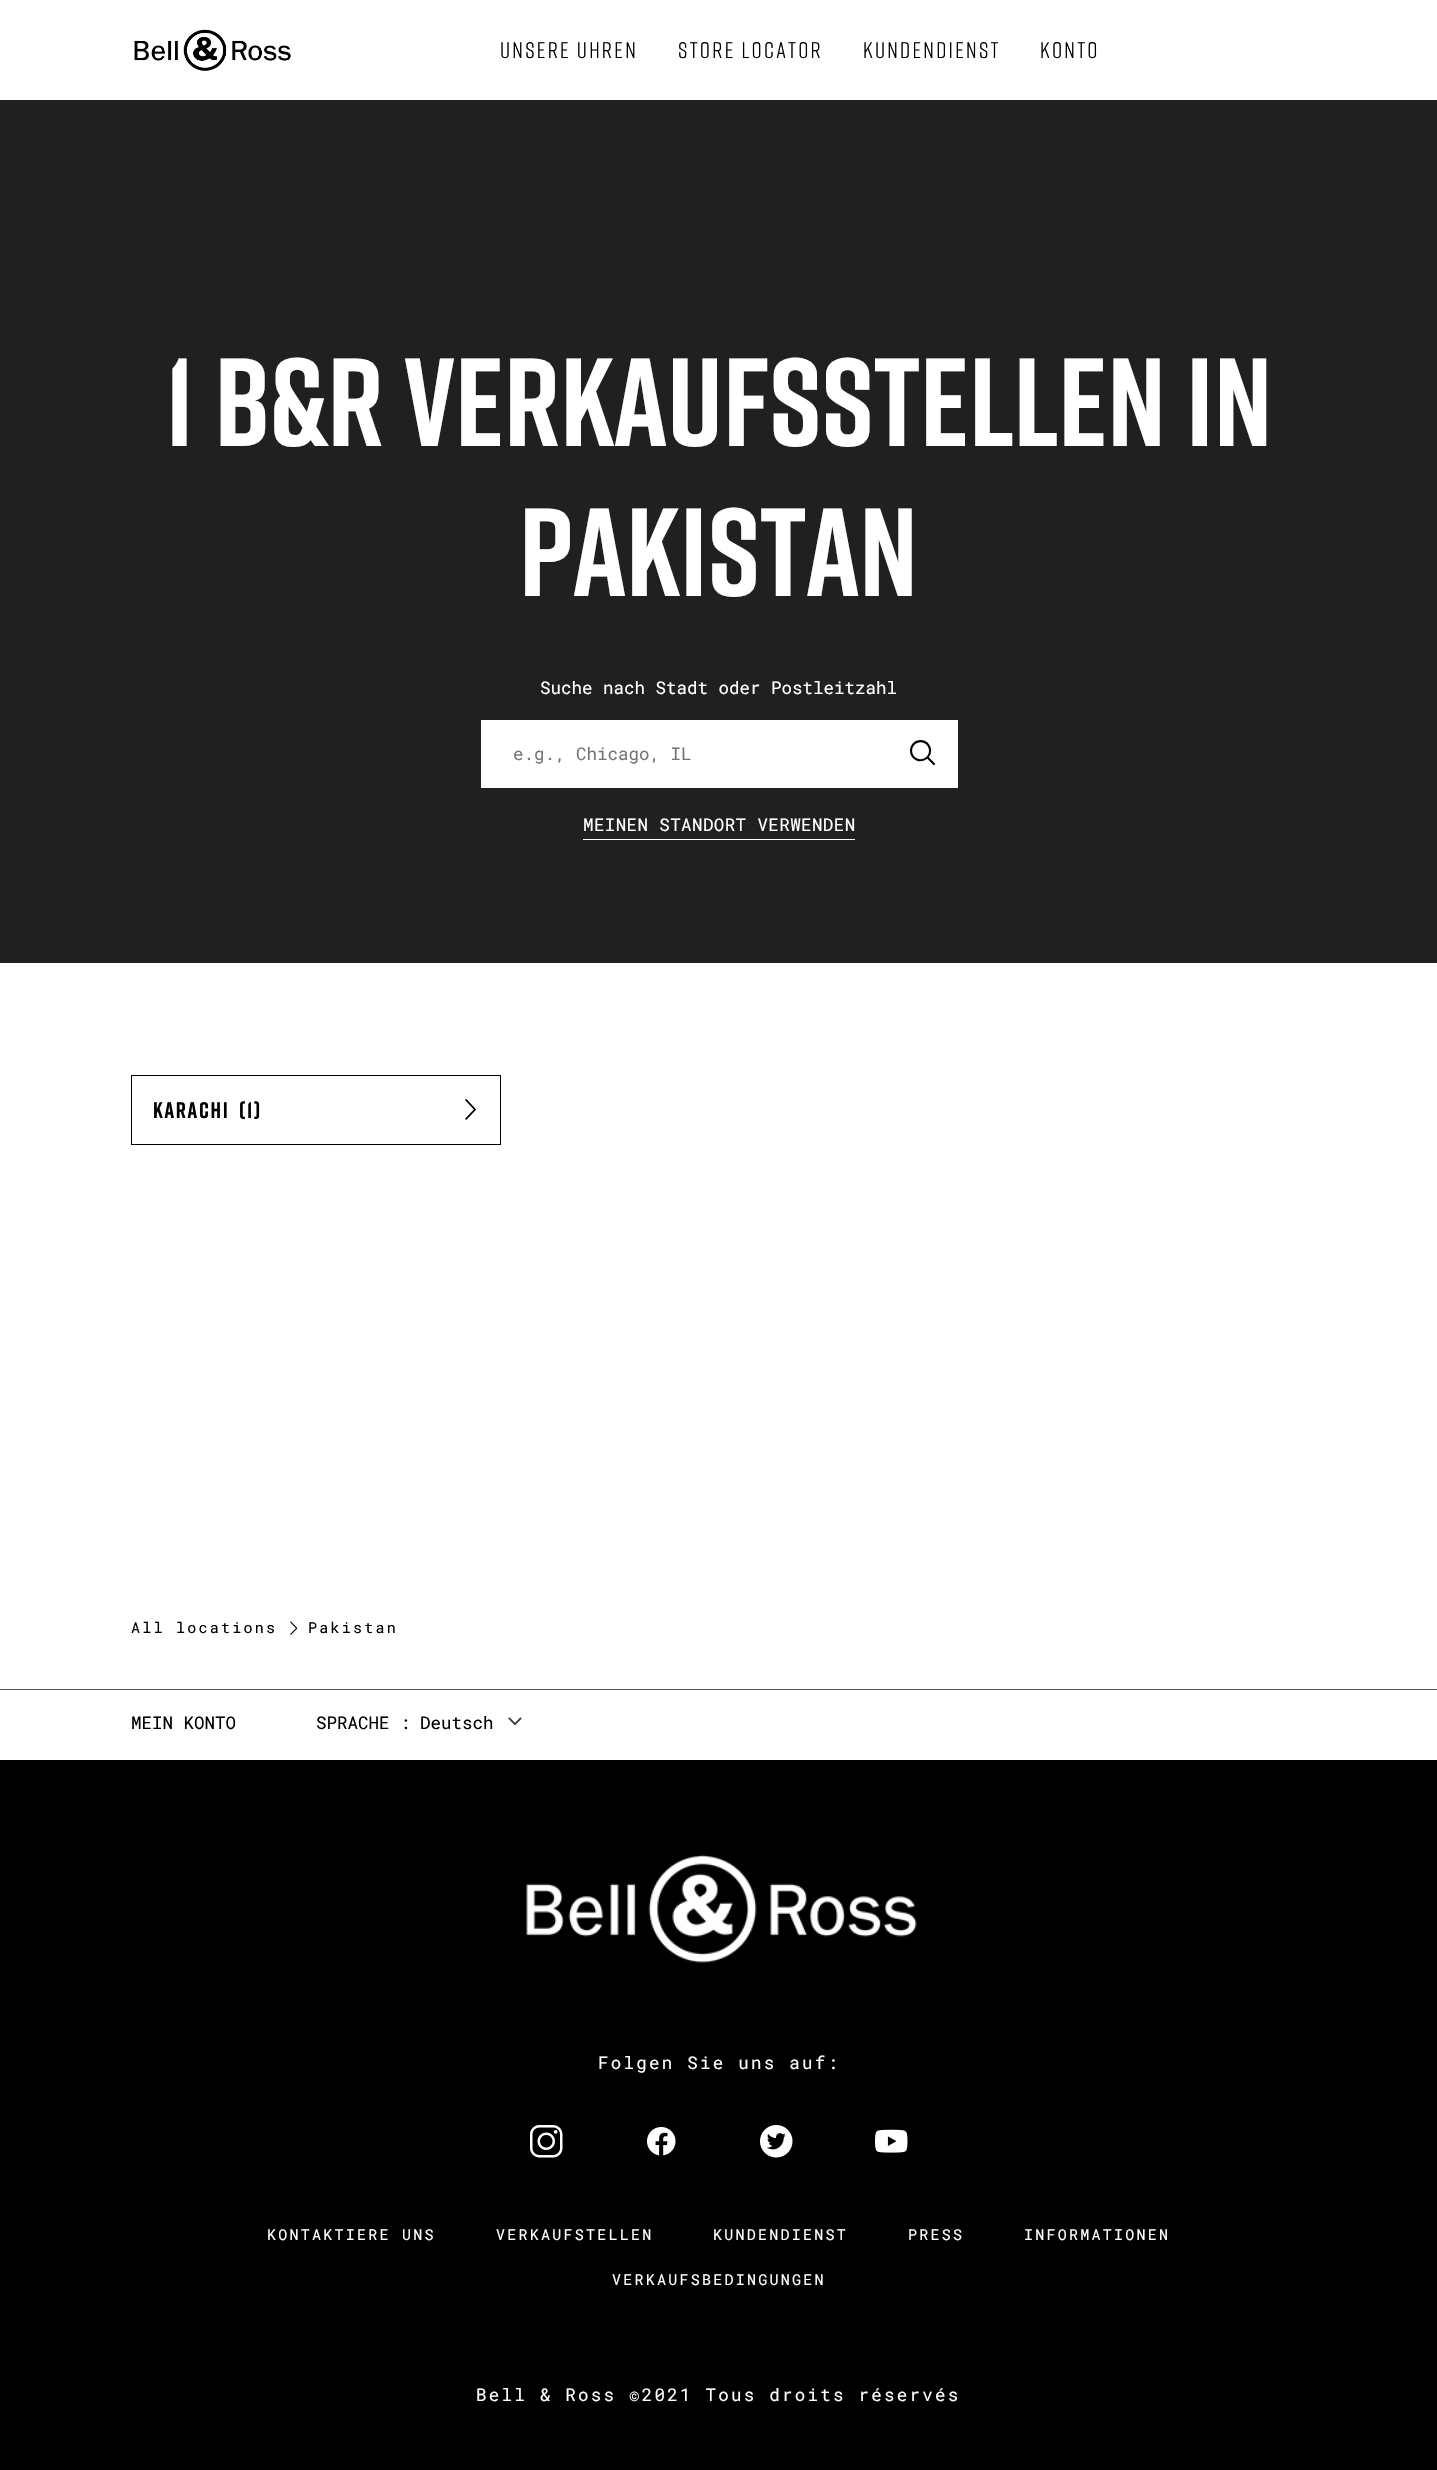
void draw(SkCanvas* canvas) {
    SkPaint paint;
    paint.setAntiAlias(true);
    auto spacedText = [&](const char* s, float x, float y, const SkFont& font, const SkPaint& ink, float letter, float word) {
        std::vector<SkGlyphID> glyphs(font.countText(s, strlen(s), SkTextEncoding::kUTF8));
        std::vector<float> xs(glyphs.size());
        font.textToGlyphs(s, strlen(s), SkTextEncoding::kUTF8, glyphs);
        font.getXPos(glyphs, xs, x);
        float extra = 0;
        for (size_t i = 0; i < glyphs.size(); i++) {
            xs[i] += extra;
            extra += letter + word * (glyphs[i] == font.unicharToGlyph(' '));
        }
        canvas->drawTextBlob(SkTextBlob::MakeFromPosHGlyphs(glyphs, xs, y, font), 0, 0, ink);
    };
    canvas->clear(0xFFFFFFFF);
    canvas->drawImageRect(SkImages::DeferredFromEncodedData(SkData::MakeFromFileName("img1.png")), SkRect::MakeXYWH(134, 29, 157, 42), SkSamplingOptions());
    SkFont font1(fontMgr->matchFamilyStyle("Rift", SkFontStyle::Normal()), 22.5f);
    font1.setSubpixel(true);
    paint.setColor(0xFF000000);
    spacedText("UNSERE UHREN", 500, 58, font1, paint, 2.25f, 0);
    spacedText("STORE LOCATOR", 678, 58, font1, paint, 2.25f, 0);
    spacedText("KUNDENDIENST", 863, 58, font1, paint, 2.25f, 0);
    spacedText("KONTO", 1040, 58, font1, paint, 2.25f, 0);
    paint.setColor(0xFF202020);
    canvas->drawRect(SkRect::MakeXYWH(0, 100, 1437, 863), paint);
    SkFont font2(fontMgr->matchFamilyStyle("Rift", SkFontStyle::Bold()), 125);
    font2.setSubpixel(true);
    paint.setColor(0xFFFFFFFF);
    canvas->drawString("1 B&R VERKAUFSSTELLEN IN", 165, 446, font2, paint);
    canvas->drawString("PAKISTAN", 519, 596, font2, paint);
    SkFont font3(fontMgr->matchFamilyStyle("Roboto Mono", SkFontStyle::Normal()), 17.5f);
    font3.setSubpixel(true);
    canvas->drawString("Suche nach Stadt oder Postleitzahl", 540, 694, font3, paint);
    canvas->drawRect(SkRect::MakeXYWH(481, 720, 477, 68), paint);
    paint.setColor(0xFF757575);
    canvas->drawString("e.g., Chicago, IL", 513, 760, font3, paint);
    canvas->drawImageRect(SkImages::DeferredFromEncodedData(SkData::MakeFromFileName("img2.png")), SkRect::MakeXYWH(910, 740, 25, 25), SkSamplingOptions());
    paint.setColor(0xFFFFFFFF);
    spacedText("MEINEN STANDORT VERWENDEN", 583, 831, font3, paint, 0.4f, 0);
    canvas->drawRect(SkRect::MakeXYWH(583, 839, 272, 1), paint);
    paint.setStyle(SkPaint::kStroke_Style);
    paint.setStrokeWidth(1);
    paint.setColor(0xFF000000);
    canvas->drawRect(SkRect::MakeXYWH(131.5f, 1075.5f, 369, 69), paint);
    SkFont font4(fontMgr->matchFamilyStyle("Rift", SkFontStyle::Bold()), 22.5f);
    font4.setSubpixel(true);
    paint.setStyle(SkPaint::kFill_Style);
    spacedText("KARACHI", 153, 1118, font4, paint, 1.75f, 0);
    spacedText("(1)", 239, 1118, font4, paint, 1.75f, 0);
    canvas->drawImageRect(SkImages::DeferredFromEncodedData(SkData::MakeFromFileName("img3.png")), SkRect::MakeXYWH(465, 1099, 11, 21), SkSamplingOptions());
    SkFont font5(fontMgr->matchFamilyStyle("Roboto Mono", SkFontStyle::Normal()), 15);
    font5.setSubpixel(true);
    spacedText("All locations", 131, 1633, font5, paint, 2.25f, 0);
    canvas->drawImageRect(SkImages::DeferredFromEncodedData(SkData::MakeFromFileName("img4.png")), SkRect::MakeXYWH(290, 1621, 8, 14), SkSamplingOptions());
    spacedText("Pakistan", 308, 1633, font5, paint, 2.25f, 0);
    paint.setColor(0xFF56594E);
    canvas->drawRect(SkRect::MakeXYWH(0, 1689, 1437, 1), paint);
    paint.setColor(0xFF000000);
    canvas->drawString("MEIN KONTO", 131, 1729, font3, paint);
    canvas->drawString("SPRACHE", 316, 1729, font3, paint);
    canvas->drawString(":", 400, 1729, font3, paint);
    canvas->drawString("Deutsch", 420, 1729, font3, paint);
    canvas->drawImageRect(SkImages::DeferredFromEncodedData(SkData::MakeFromFileName("img5.png")), SkRect::MakeXYWH(508, 1717, 14, 8), SkSamplingOptions());
    canvas->drawRect(SkRect::MakeXYWH(0, 1760, 1437, 710), paint);
    canvas->drawImageRect(SkImages::DeferredFromEncodedData(SkData::MakeFromFileName("img6.png")), SkRect::MakeXYWH(526, 1855, 391, 108), SkSamplingOptions());
    paint.setColor(0xFFFFFFFF);
    spacedText("Folgen Sie uns auf:", 598, 2069, font3, paint, 2.25f, 0);
    canvas->drawImageRect(SkImages::DeferredFromEncodedData(SkData::MakeFromFileName("img7.png")), SkRect::MakeXYWH(530, 2125, 33, 33), SkSamplingOptions());
    canvas->drawImageRect(SkImages::DeferredFromEncodedData(SkData::MakeFromFileName("img8.png")), SkRect::MakeXYWH(646, 2126, 30, 30), SkSamplingOptions());
    canvas->drawImageRect(SkImages::DeferredFromEncodedData(SkData::MakeFromFileName("img9.png")), SkRect::MakeXYWH(760, 2125, 33, 33), SkSamplingOptions());
    canvas->drawImageRect(SkImages::DeferredFromEncodedData(SkData::MakeFromFileName("img10.png")), SkRect::MakeXYWH(875, 2129, 33, 24), SkSamplingOptions());
    spacedText("KONTAKTIERE UNS", 267, 2240, font5, paint, 2.25f, 0);
    spacedText("VERKAUFSTELLEN", 496, 2240, font5, paint, 2.25f, 0);
    spacedText("KUNDENDIENST", 713, 2240, font5, paint, 2.25f, 0);
    spacedText("PRESS", 908, 2240, font5, paint, 2.25f, 0);
    spacedText("INFORMATIONEN", 1024, 2240, font5, paint, 2.25f, 0);
    spacedText("VERKAUFSBEDINGUNGEN", 612, 2285, font5, paint, 2.25f, 0);
    spacedText("Bell & Ross ©2021 Tous droits réservés", 476, 2401, font3, paint, 2.25f, 0);
}
